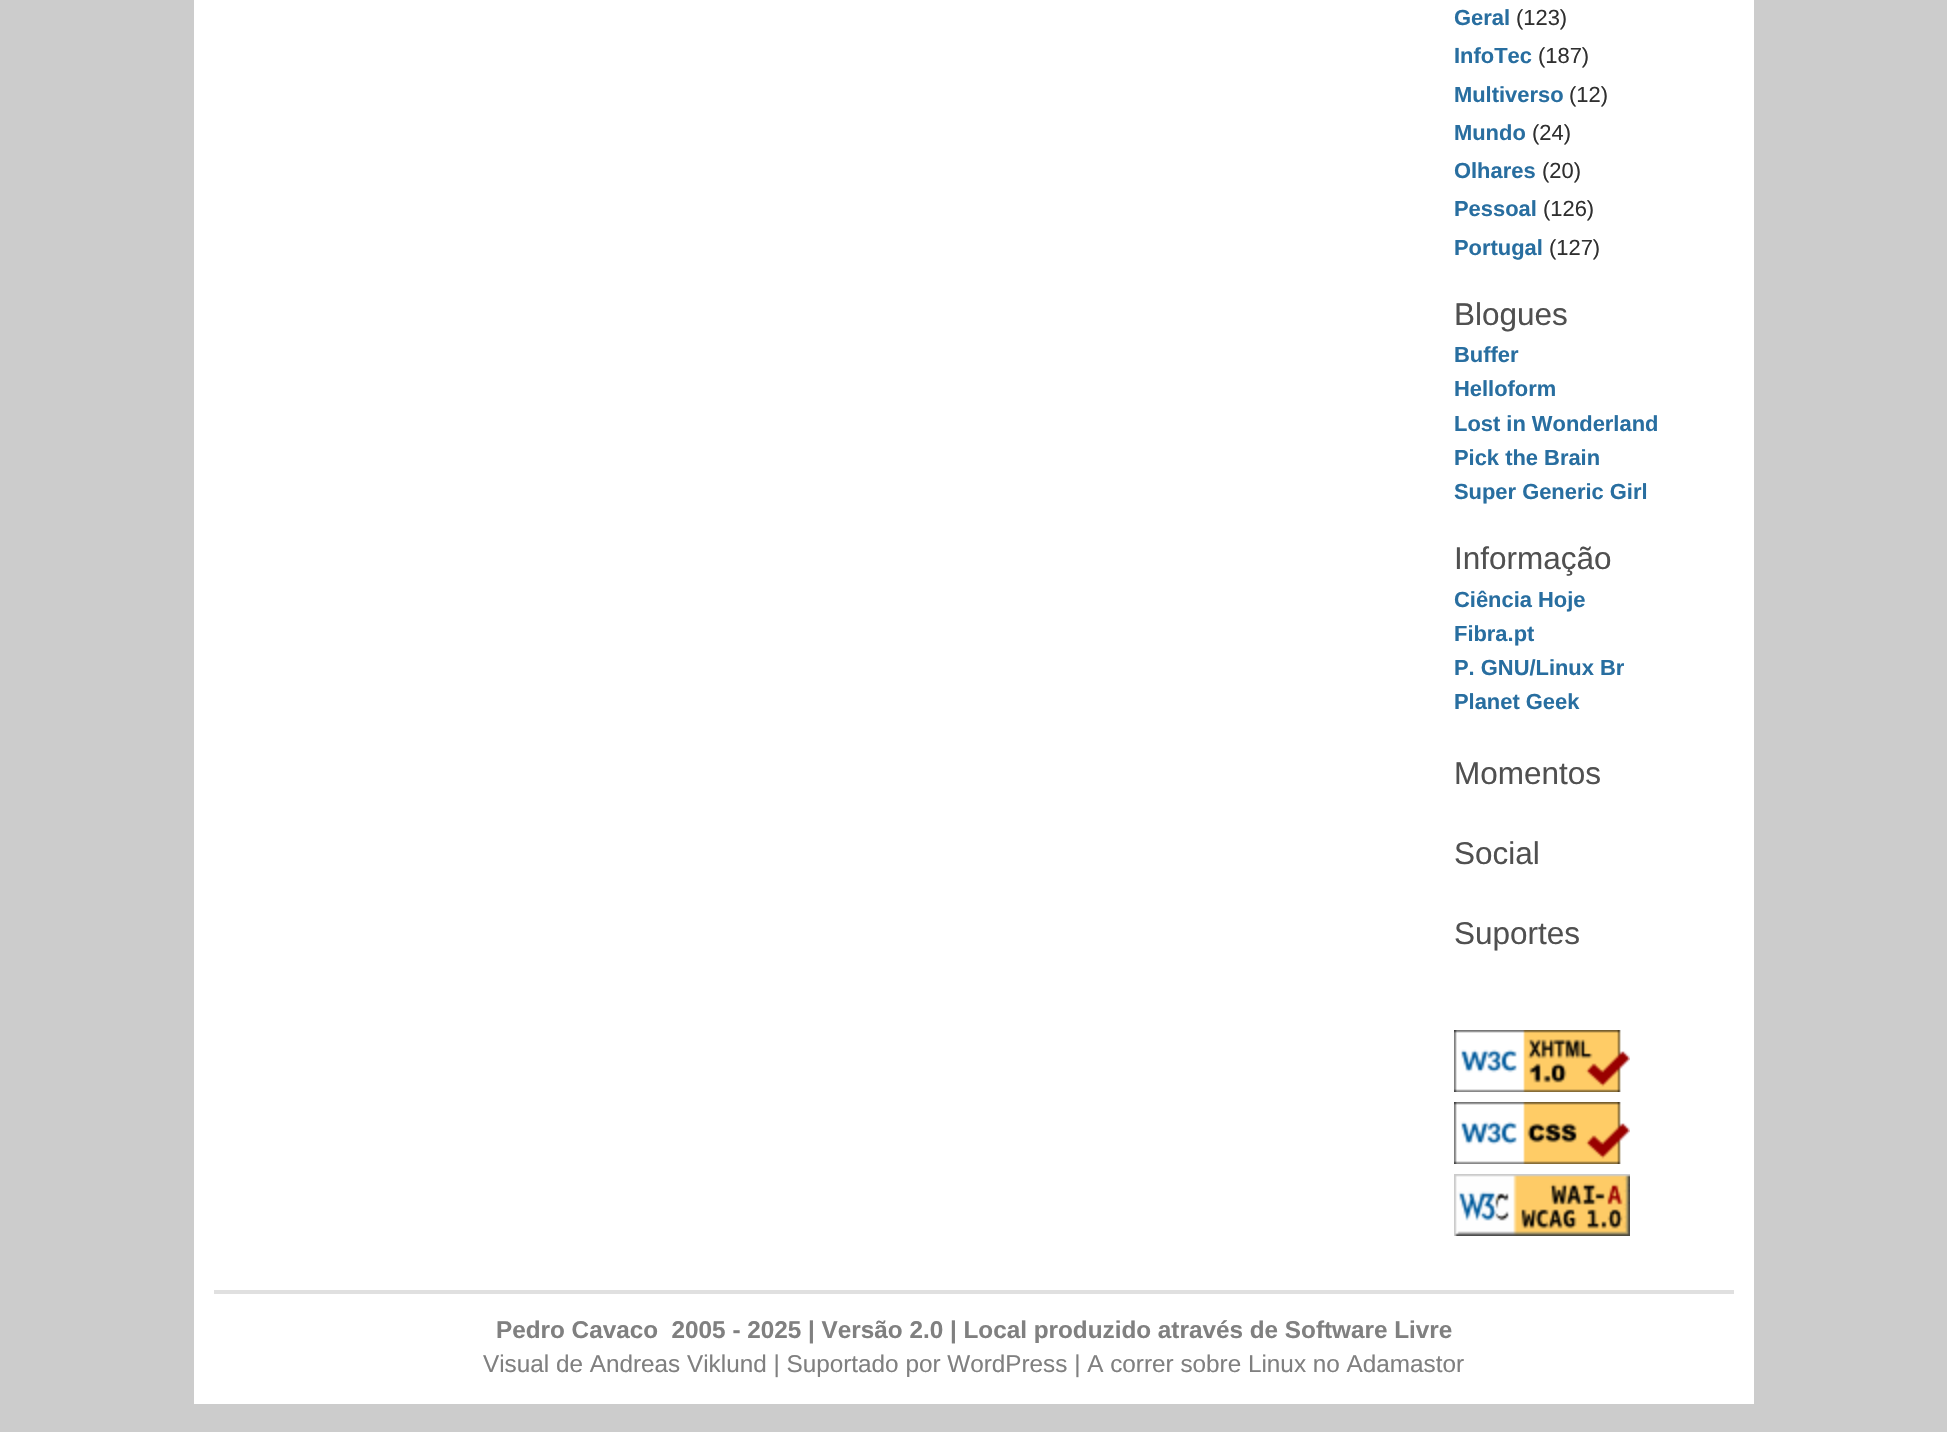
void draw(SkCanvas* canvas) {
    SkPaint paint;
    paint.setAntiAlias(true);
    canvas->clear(0xFFCCCCCC);
    paint.setColor(0xFFFFFFFF);
    canvas->drawRect(SkRect::MakeXYWH(194, 0, 1560, 1404), paint);
    SkFont font1(fontMgr->matchFamilyStyle("Liberation Sans", SkFontStyle::Bold()), 21.9f);
    font1.setSubpixel(true);
    paint.setColor(0xFF286EA0);
    canvas->drawString("Geral", 1454, 25, font1, paint);
    SkFont font2(fontMgr->matchFamilyStyle("Liberation Sans", SkFontStyle::Normal()), 21.9f);
    font2.setSubpixel(true);
    paint.setColor(0xFF303030);
    canvas->drawString("(123)", 1516, 25, font2, paint);
    paint.setColor(0xFF286EA0);
    canvas->drawString("InfoTec", 1454, 63, font1, paint);
    paint.setColor(0xFF303030);
    canvas->drawString("(187)", 1538, 63, font2, paint);
    paint.setColor(0xFF286EA0);
    canvas->drawString("Multiverso", 1454, 102, font1, paint);
    paint.setColor(0xFF303030);
    canvas->drawString("(12)", 1569, 102, font2, paint);
    paint.setColor(0xFF286EA0);
    canvas->drawString("Mundo", 1454, 140, font1, paint);
    paint.setColor(0xFF303030);
    canvas->drawString("(24)", 1532, 140, font2, paint);
    paint.setColor(0xFF286EA0);
    canvas->drawString("Olhares", 1454, 178, font1, paint);
    paint.setColor(0xFF303030);
    canvas->drawString("(20)", 1542, 178, font2, paint);
    paint.setColor(0xFF286EA0);
    canvas->drawString("Pessoal", 1454, 216, font1, paint);
    paint.setColor(0xFF303030);
    canvas->drawString("(126)", 1543, 216, font2, paint);
    paint.setColor(0xFF286EA0);
    canvas->drawString("Portugal", 1454, 255, font1, paint);
    paint.setColor(0xFF303030);
    canvas->drawString("(127)", 1549, 255, font2, paint);
    SkFont font3(fontMgr->matchFamilyStyle("Liberation Sans", SkFontStyle::Normal()), 31.5f);
    font3.setSubpixel(true);
    paint.setColor(0xFF505050);
    canvas->drawString("Blogues", 1454, 325, font3, paint);
    paint.setColor(0xFF286EA0);
    canvas->drawString("Buffer", 1454, 362, font1, paint);
    canvas->drawString("Helloform", 1454, 396, font1, paint);
    canvas->drawString("Lost in Wonderland", 1454, 431, font1, paint);
    canvas->drawString("Pick the Brain", 1454, 465, font1, paint);
    canvas->drawString("Super Generic Girl", 1454, 499, font1, paint);
    paint.setColor(0xFF505050);
    canvas->drawString("Informação", 1454, 569, font3, paint);
    paint.setColor(0xFF286EA0);
    canvas->drawString("Ciência Hoje", 1454, 607, font1, paint);
    canvas->drawString("Fibra.pt", 1454, 641, font1, paint);
    canvas->drawString("P. GNU/Linux Br", 1454, 675, font1, paint);
    canvas->drawString("Planet Geek", 1454, 709, font1, paint);
    paint.setColor(0xFF505050);
    canvas->drawString("Momentos", 1454, 784, font3, paint);
    canvas->drawString("Social", 1454, 864, font3, paint);
    canvas->drawString("Suportes", 1454, 944, font3, paint);
    canvas->drawImageRect(SkImages::DeferredFromEncodedData(SkData::MakeFromFileName("img1.png")), SkRect::MakeXYWH(1454, 1030, 176, 62), SkSamplingOptions());
    canvas->drawImageRect(SkImages::DeferredFromEncodedData(SkData::MakeFromFileName("img2.png")), SkRect::MakeXYWH(1454, 1102, 176, 62), SkSamplingOptions());
    canvas->drawImageRect(SkImages::DeferredFromEncodedData(SkData::MakeFromFileName("img3.png")), SkRect::MakeXYWH(1454, 1174, 176, 62), SkSamplingOptions());
    paint.setColor(0xFFE0E0E0);
    canvas->drawRect(SkRect::MakeXYWH(214, 1290, 1520, 4), paint);
    SkFont font4(fontMgr->matchFamilyStyle("Liberation Sans", SkFontStyle::Bold()), 24.3f);
    font4.setSubpixel(true);
    paint.setColor(0xFF808080);
    canvas->drawString("Pedro Cavaco  2005 - 2025 | Versão 2.0 | Local produzido através de Software Livre", 496, 1338, font4, paint);
    SkFont font5(fontMgr->matchFamilyStyle("Liberation Sans", SkFontStyle::Normal()), 24.3f);
    font5.setSubpixel(true);
    canvas->drawString("Visual de Andreas Viklund | Suportado por WordPress | A correr sobre Linux no Adamastor", 483, 1372, font5, paint);
}
